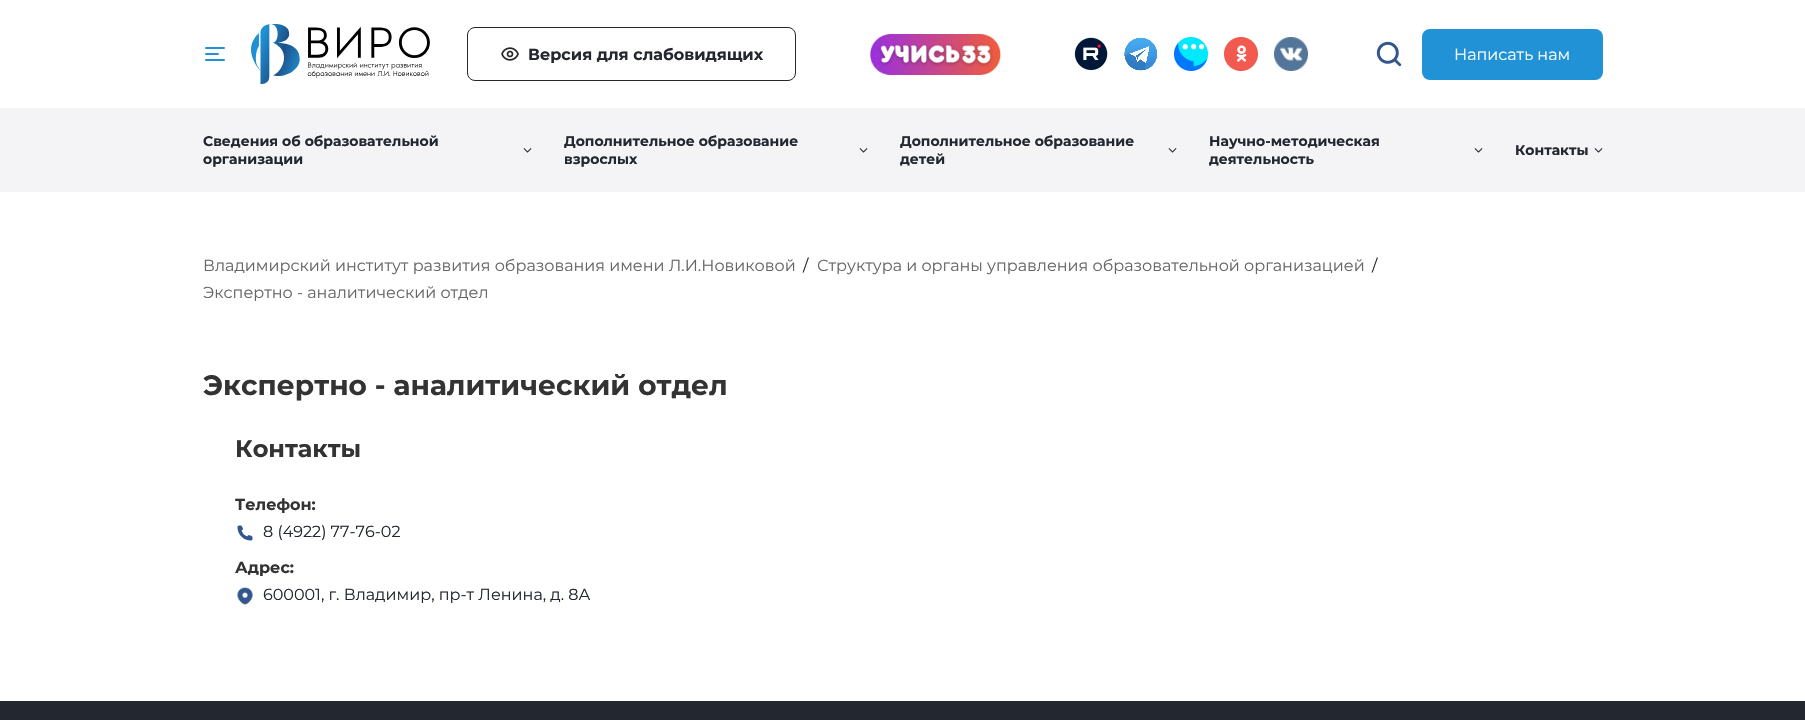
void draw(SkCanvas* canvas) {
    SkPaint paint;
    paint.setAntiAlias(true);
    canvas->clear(0xFFFFFFFF);
    paint.setStyle(SkPaint::kStroke_Style);
    paint.setStrokeWidth(2);
    paint.setStrokeCap(SkPaint::kRound_Cap);
    paint.setStrokeJoin(SkPaint::kRound_Join);
    paint.setColor(0xFF2192D5);
    canvas->drawPath(SkPathBuilder().moveTo(206, 54).lineTo(218, 54).moveTo(206, 48).lineTo(224, 48).moveTo(206, 60).lineTo(224, 60).detach(), paint);
    canvas->drawImageRect(SkImages::DeferredFromEncodedData(SkData::MakeFromFileName("img1.png")), SkRect::MakeXYWH(251, 24, 179, 60), SkSamplingOptions());
    paint.setStrokeWidth(1);
    paint.setStrokeCap(SkPaint::kButt_Cap);
    paint.setStrokeJoin(SkPaint::kMiter_Join);
    paint.setColor(0xFF23272F);
    canvas->drawRoundRect(SkRect::MakeXYWH(467.5f, 27.5f, 328, 53), 7.5f, 7.5f, paint);
    canvas->drawImageRect(SkImages::DeferredFromEncodedData(SkData::MakeFromFileName("img2.png")), SkRect::MakeXYWH(501, 47, 18, 14), SkSamplingOptions());
    SkFont font1(fontMgr->matchFamilyStyle("Montserrat", SkFontStyle::Bold()), 16);
    font1.setSubpixel(true);
    paint.setStyle(SkPaint::kFill_Style);
    canvas->drawString("Версия для слабовидящих", 528, 60, font1, paint);
    canvas->drawImageRect(SkImages::DeferredFromEncodedData(SkData::MakeFromFileName("img3.png")), SkRect::MakeXYWH(870, 34, 131, 41), SkSamplingOptions());
    canvas->drawImageRect(SkImages::DeferredFromEncodedData(SkData::MakeFromFileName("img4.png")), SkRect::MakeXYWH(1074, 37, 34, 34), SkSamplingOptions());
    canvas->drawImageRect(SkImages::DeferredFromEncodedData(SkData::MakeFromFileName("img5.png")), SkRect::MakeXYWH(1124, 37, 33, 34), SkSamplingOptions());
    canvas->drawImageRect(SkImages::DeferredFromEncodedData(SkData::MakeFromFileName("img6.png")), SkRect::MakeXYWH(1174, 37, 34, 34), SkSamplingOptions());
    canvas->drawImageRect(SkImages::DeferredFromEncodedData(SkData::MakeFromFileName("img7.png")), SkRect::MakeXYWH(1224, 37, 34, 34), SkSamplingOptions());
    canvas->drawImageRect(SkImages::DeferredFromEncodedData(SkData::MakeFromFileName("img8.png")), SkRect::MakeXYWH(1274, 37, 34, 34), SkSamplingOptions());
    canvas->drawImageRect(SkImages::DeferredFromEncodedData(SkData::MakeFromFileName("img9.png")), SkRect::MakeXYWH(1376, 41, 26, 26), SkSamplingOptions());
    paint.setColor(0xFF2192D5);
    canvas->drawRoundRect(SkRect::MakeXYWH(1422, 29, 181, 51), 8, 8, paint);
    SkFont font2(fontMgr->matchFamilyStyle("Montserrat", SkFontStyle::Normal()), 16);
    font2.setSubpixel(true);
    paint.setColor(0xFFFFFFFF);
    canvas->drawString("Написать нам", 1454, 60, font2, paint);
    paint.setColor(0xFFF4F4F6);
    canvas->drawRect(SkRect::MakeXYWH(0, 108, 1805, 84), paint);
    SkFont font3(fontMgr->matchFamilyStyle("Montserrat", SkFontStyle::Bold()), 14);
    font3.setSubpixel(true);
    paint.setColor(0xFF23272F);
    canvas->drawString("Сведения об образовательной", 203, 146, font3, paint);
    canvas->drawImageRect(SkImages::DeferredFromEncodedData(SkData::MakeFromFileName("img10.png")), SkRect::MakeXYWH(523, 148, 9, 5), SkSamplingOptions());
    canvas->drawString("организации", 203, 164, font3, paint);
    canvas->drawString("Дополнительное образование", 564, 146, font3, paint);
    canvas->drawImageRect(SkImages::DeferredFromEncodedData(SkData::MakeFromFileName("img10.png")), SkRect::MakeXYWH(859, 148, 9, 5), SkSamplingOptions());
    canvas->drawString("взрослых", 564, 164, font3, paint);
    canvas->drawString("Дополнительное образование", 900, 146, font3, paint);
    canvas->drawImageRect(SkImages::DeferredFromEncodedData(SkData::MakeFromFileName("img10.png")), SkRect::MakeXYWH(1168, 148, 9, 5), SkSamplingOptions());
    canvas->drawString("детей", 900, 164, font3, paint);
    canvas->drawString("Научно-методическая", 1209, 146, font3, paint);
    canvas->drawImageRect(SkImages::DeferredFromEncodedData(SkData::MakeFromFileName("img10.png")), SkRect::MakeXYWH(1474, 148, 9, 5), SkSamplingOptions());
    canvas->drawString("деятельность", 1209, 164, font3, paint);
    canvas->drawString("Контакты", 1515, 155, font3, paint);
    canvas->drawImageRect(SkImages::DeferredFromEncodedData(SkData::MakeFromFileName("img10.png")), SkRect::MakeXYWH(1594, 148, 9, 5), SkSamplingOptions());
    paint.setColor(0xFF666666);
    canvas->drawString("Владимирский институт развития образования имени Л.И.Новиковой", 203, 271, font2, paint);
    paint.setColor(0xFF23272F);
    canvas->drawString("/", 803, 271, font2, paint);
    paint.setColor(0xFF666666);
    canvas->drawString("Структура и органы управления образовательной организацией", 817, 271, font2, paint);
    paint.setColor(0xFF23272F);
    canvas->drawString("/", 1372, 271, font2, paint);
    paint.setColor(0xFF666666);
    canvas->drawString("Экспертно - аналитический отдел", 203, 298, font2, paint);
    SkFont font4(fontMgr->matchFamilyStyle("Montserrat", SkFontStyle::Bold()), 28);
    font4.setSubpixel(true);
    paint.setColor(0xFF333333);
    canvas->drawString("Экспертно - аналитический отдел", 203, 395, font4, paint);
    SkFont font5(fontMgr->matchFamilyStyle("Montserrat", SkFontStyle::Bold()), 24);
    font5.setSubpixel(true);
    canvas->drawString("Контакты", 235, 457, font5, paint);
    canvas->drawString("Телефон:", 235, 510, font1, paint);
    canvas->drawImageRect(SkImages::DeferredFromEncodedData(SkData::MakeFromFileName("img11.png")), SkRect::MakeXYWH(237, 525, 16, 16), SkSamplingOptions());
    paint.setColor(0xFF23272F);
    canvas->drawString("8 (4922) 77-76-02", 263, 537, font2, paint);
    paint.setColor(0xFF333333);
    canvas->drawString("Адрес:", 235, 573, font1, paint);
    canvas->drawImageRect(SkImages::DeferredFromEncodedData(SkData::MakeFromFileName("img12.png")), SkRect::MakeXYWH(237, 587, 16, 18), SkSamplingOptions());
    paint.setColor(0xFF23272F);
    canvas->drawString("600001, г. Владимир, пр-т Ленина, д. 8А", 263, 600, font2, paint);
    canvas->drawRect(SkRect::MakeXYWH(0, 701, 1805, 19), paint);
}
